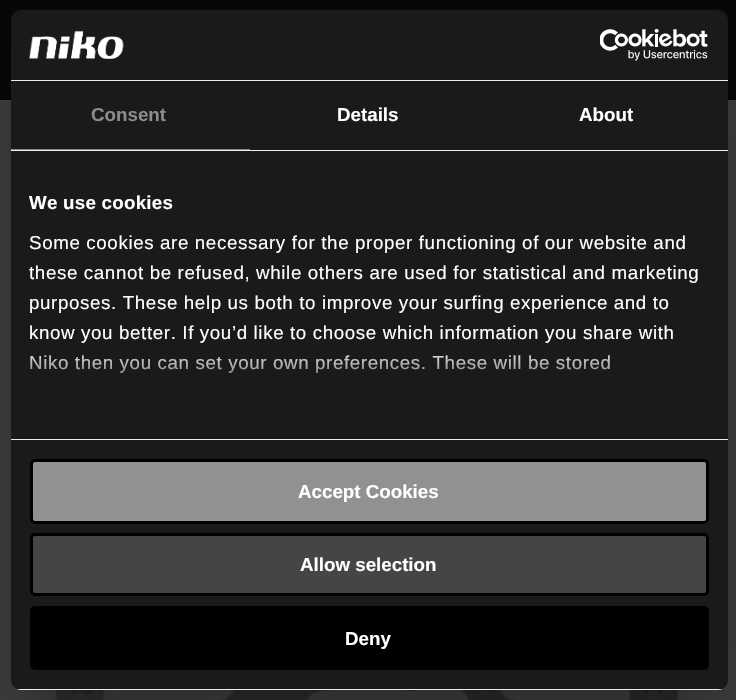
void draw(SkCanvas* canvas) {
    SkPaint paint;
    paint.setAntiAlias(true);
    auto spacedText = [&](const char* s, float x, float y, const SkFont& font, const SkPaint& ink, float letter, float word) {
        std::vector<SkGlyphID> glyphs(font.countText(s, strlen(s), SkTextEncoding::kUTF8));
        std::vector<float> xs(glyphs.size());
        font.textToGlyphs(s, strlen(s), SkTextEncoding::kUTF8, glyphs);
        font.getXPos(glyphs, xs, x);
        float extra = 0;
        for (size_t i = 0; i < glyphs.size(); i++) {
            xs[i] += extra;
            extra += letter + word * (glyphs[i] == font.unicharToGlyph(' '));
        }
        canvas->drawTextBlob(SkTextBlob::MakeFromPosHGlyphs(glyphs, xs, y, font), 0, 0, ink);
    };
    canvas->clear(0xFF404040);
    paint.setColor(0xFF070707);
    canvas->drawRect(SkRect::MakeXYWH(0, 0, 736, 100), paint);
    canvas->drawImageRect(SkImages::DeferredFromEncodedData(SkData::MakeFromFileName("img3.png")), SkRect::MakeXYWH(55, 690, 625, 10), SkSamplingOptions());
    paint.setColor(0x4D000000);
    paint.setMaskFilter(SkMaskFilter::MakeBlur(kNormal_SkBlurStyle, 42.5f));
    canvas->drawRoundRect(SkRect::MakeXYWH(11, 50, 717, 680), 10, 10, paint);
    paint.setMaskFilter(nullptr);
    paint.setColor(0xFF1A1A1A);
    canvas->drawRoundRect(SkRect::MakeXYWH(11, 10, 717, 680), 10, 10, paint);
    paint.setColor(0xFFEEEEEE);
    canvas->drawRect(SkRect::MakeXYWH(11, 80, 717, 1), paint);
    canvas->drawImageRect(SkImages::DeferredFromEncodedData(SkData::MakeFromFileName("img1.png")), SkRect::MakeXYWH(29, 30, 95, 29), SkSamplingOptions());
    canvas->drawImageRect(SkImages::DeferredFromEncodedData(SkData::MakeFromFileName("img2.png")), SkRect::MakeXYWH(600, 29, 108, 32), SkSamplingOptions());
    canvas->drawRect(SkRect::MakeXYWH(11, 150, 717, 1), paint);
    paint.setColor(0xFF8C8C8C);
    canvas->drawRect(SkRect::MakeXYWH(11, 149, 239, 1), paint);
    SkFont font1(fontMgr->matchFamilyStyle("Liberation Sans", SkFontStyle::Bold()), 18.75f);
    font1.setSubpixel(true);
    canvas->drawString("Consent", 91, 121, font1, paint);
    paint.setColor(0xFFFFFFFF);
    canvas->drawString("Details", 337, 121, font1, paint);
    canvas->drawString("About", 579, 121, font1, paint);
    paint.setColor(0xFFEEEEEE);
    canvas->drawRect(SkRect::MakeXYWH(11, 439, 717, 1), paint);
    paint.setColor(0xFFFFFFFF);
    spacedText("We use cookies", 29, 209, font1, paint, 0.25f, 0);
    SkFont font2(fontMgr->matchFamilyStyle("Liberation Sans", SkFontStyle::Normal()), 18.75f);
    font2.setSubpixel(true);
    spacedText("Some cookies are necessary for the proper functioning of our website and", 29, 249, font2, paint, 0.62f, 0);
    spacedText("these cannot be refused, while others are used for statistical and marketing", 29, 279, font2, paint, 0.62f, 0);
    spacedText("purposes. These help us both to improve your surfing experience and to", 29, 309, font2, paint, 0.62f, 0);
    spacedText("know you better. If you’d like to choose which information you share with", 29, 339, font2, paint, 0.62f, 0);
    spacedText("Niko then you can set your own preferences. These will be stored", 29, 369, font2, paint, 0.62f, 0);
    {
        const SkColor colors[] = {0xFF1A1A1A, 0xCC1A1A1A, 0x001A1A1A};
        const float stops[] = {0, 0.5f, 1};
        const SkPoint ends[] = {{361, 439}, {361, 345}};
        paint.setShader(SkGradientShader::MakeLinear(ends, colors, stops, 3, SkTileMode::kClamp));
        paint.setAlpha(255);
    }
    canvas->drawRect(SkRect::MakeXYWH(30, 355, 580, 18), paint);
    canvas->save();
    canvas->clipPath(SkPathBuilder().moveTo(21, 10).lineTo(718, 10).cubicTo(723.5f, 10, 728, 14.5f, 728, 20).lineTo(728, 680).cubicTo(728, 685.5f, 723.5f, 690, 718, 690).lineTo(21, 690).cubicTo(15.5f, 690, 11, 685.5f, 11, 680).lineTo(11, 20).cubicTo(11, 14.5f, 15.5f, 10, 21, 10).close().detach(), true);
    paint.setShader(nullptr);
    paint.setColor(0xFFEEEEEE);
    canvas->drawRect(SkRect::MakeXYWH(11, 689, 717, 1), paint);
    canvas->restore();
    paint.setColor(0xFF919191);
    canvas->drawRoundRect(SkRect::MakeXYWH(31.5f, 460.5f, 676, 62), 3.5f, 3.5f, paint);
    paint.setStyle(SkPaint::kStroke_Style);
    paint.setStrokeWidth(3);
    paint.setColor(0xFF000000);
    canvas->drawRoundRect(SkRect::MakeXYWH(31.5f, 460.5f, 676, 62), 3.5f, 3.5f, paint);
    paint.setStyle(SkPaint::kFill_Style);
    paint.setColor(0xFFFFFFFF);
    canvas->drawString("Accept Cookies", 298, 498, font1, paint);
    paint.setColor(0xFF454545);
    canvas->drawRoundRect(SkRect::MakeXYWH(31.5f, 534.5f, 676, 60), 3.5f, 3.5f, paint);
    paint.setStyle(SkPaint::kStroke_Style);
    paint.setColor(0xFF000000);
    canvas->drawRoundRect(SkRect::MakeXYWH(31.5f, 534.5f, 676, 60), 3.5f, 3.5f, paint);
    paint.setStyle(SkPaint::kFill_Style);
    paint.setColor(0xFFFFFFFF);
    canvas->drawString("Allow selection", 300, 571, font1, paint);
    paint.setColor(0xFF000000);
    canvas->drawRoundRect(SkRect::MakeXYWH(31.5f, 607.5f, 676, 61), 3.5f, 3.5f, paint);
    paint.setStyle(SkPaint::kStroke_Style);
    canvas->drawRoundRect(SkRect::MakeXYWH(31.5f, 607.5f, 676, 61), 3.5f, 3.5f, paint);
    paint.setStyle(SkPaint::kFill_Style);
    paint.setColor(0xFFFFFFFF);
    canvas->drawString("Deny", 345, 645, font1, paint);
}
